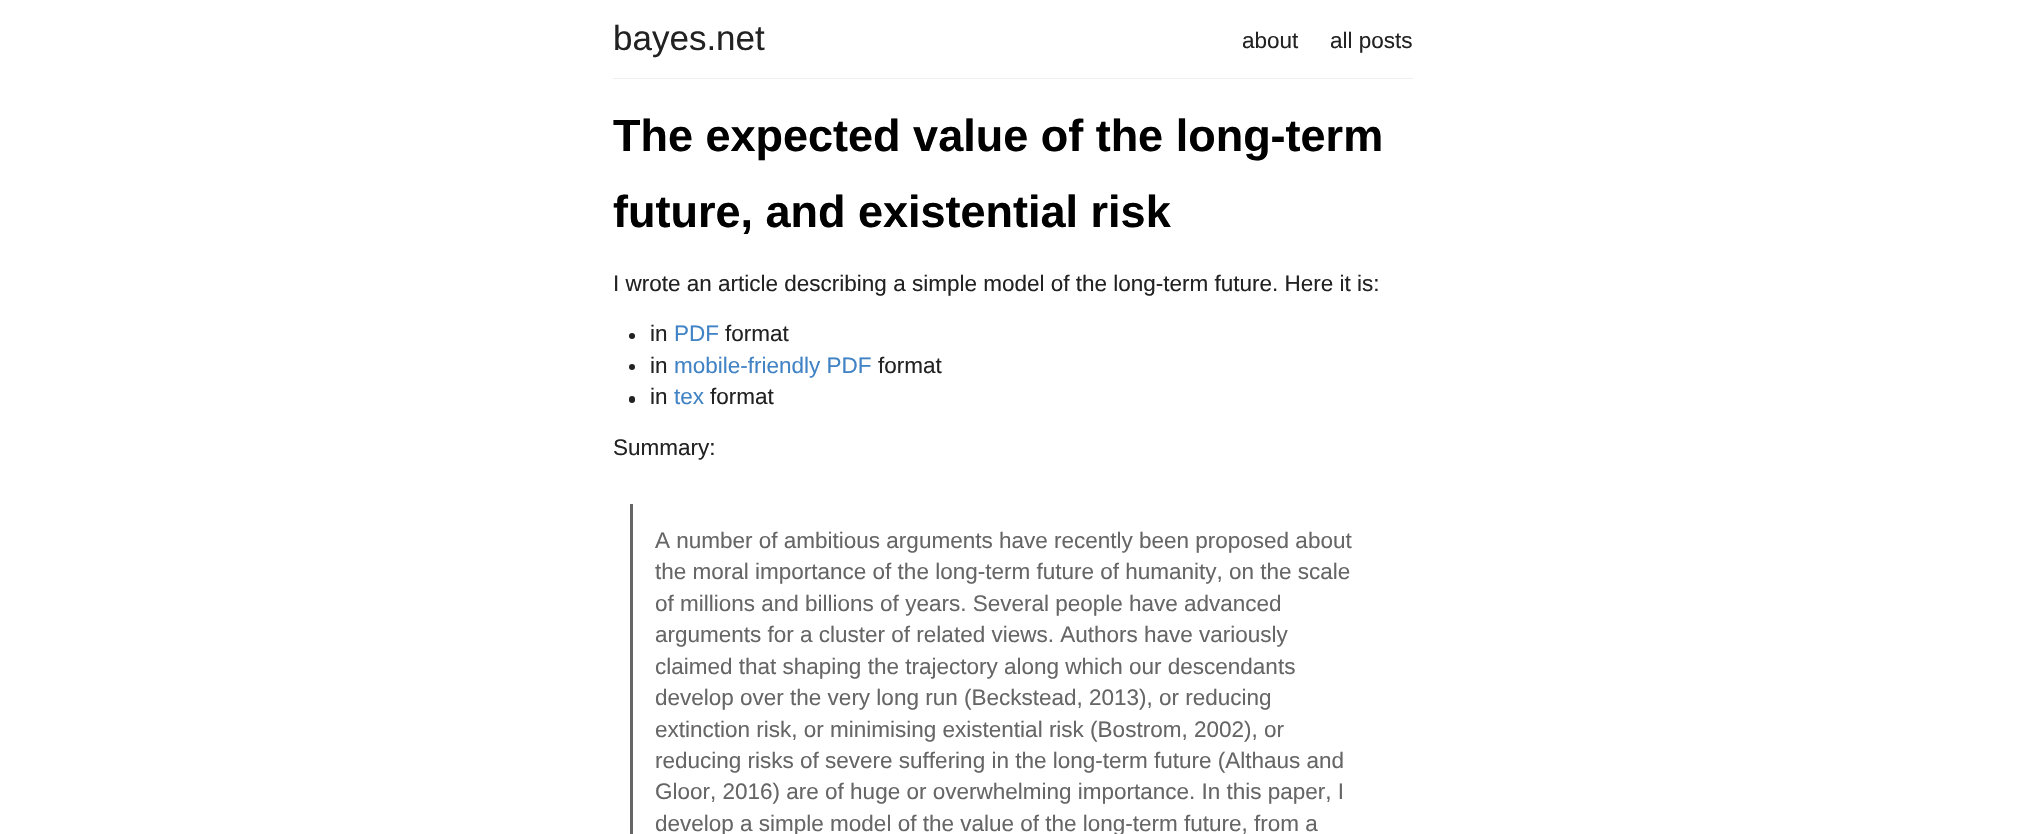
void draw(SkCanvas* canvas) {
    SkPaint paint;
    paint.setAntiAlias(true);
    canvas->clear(0xFFFFFFFF);
    paint.setColor(0xFFEEEEEE);
    canvas->drawRect(SkRect::MakeXYWH(613, 78, 800, 1), paint);
    SkFont font1(fontMgr->matchFamilyStyle("Liberation Sans", SkFontStyle::Normal()), 35);
    font1.setSubpixel(true);
    paint.setColor(0xFF222222);
    canvas->drawString("bayes.net", 613, 50, font1, paint);
    SkFont font2(fontMgr->matchFamilyStyle("Liberation Sans", SkFontStyle::Normal()), 22.5f);
    font2.setSubpixel(true);
    canvas->drawString("about", 1242, 48, font2, paint);
    canvas->drawString("all posts", 1330, 48, font2, paint);
    SkFont font3(fontMgr->matchFamilyStyle("Liberation Sans", SkFontStyle::Bold()), 45);
    font3.setSubpixel(true);
    paint.setColor(0xFF000000);
    canvas->drawString("The expected value of the long-term", 613, 151, font3, paint);
    canvas->drawString("future, and existential risk", 613, 227, font3, paint);
    paint.setColor(0xFF222222);
    canvas->drawString("I wrote an article describing a simple model of the long-term future. Here it is:", 613, 291, font2, paint);
    canvas->drawCircle(632, 336, 3, paint);
    canvas->drawString("in", 650, 341, font2, paint);
    paint.setColor(0xFF4183C4);
    canvas->drawString("PDF", 674, 341, font2, paint);
    paint.setColor(0xFF222222);
    canvas->drawString("format", 725, 341, font2, paint);
    canvas->drawCircle(632, 367, 3, paint);
    canvas->drawString("in", 650, 373, font2, paint);
    paint.setColor(0xFF4183C4);
    canvas->drawString("mobile-friendly PDF", 674, 373, font2, paint);
    paint.setColor(0xFF222222);
    canvas->drawString("format", 878, 373, font2, paint);
    canvas->drawRoundRect(SkRect::MakeXYWH(629, 396, 6, 7), 3, 3, paint);
    canvas->drawString("in", 650, 404, font2, paint);
    paint.setColor(0xFF4183C4);
    canvas->drawString("tex", 674, 404, font2, paint);
    paint.setColor(0xFF222222);
    canvas->drawString("format", 710, 404, font2, paint);
    canvas->drawString("Summary:", 613, 455, font2, paint);
    paint.setColor(0xFF666666);
    canvas->drawRect(SkRect::MakeXYWH(630, 504, 3, 330), paint);
    canvas->drawString("A number of ambitious arguments have recently been proposed about", 655, 548, font2, paint);
    canvas->drawString("the moral importance of the long-term future of humanity, on the scale", 655, 579, font2, paint);
    canvas->drawString("of millions and billions of years. Several people have advanced", 655, 611, font2, paint);
    canvas->drawString("arguments for a cluster of related views. Authors have variously", 655, 642, font2, paint);
    canvas->drawString("claimed that shaping the trajectory along which our descendants", 655, 674, font2, paint);
    canvas->drawString("develop over the very long run (Beckstead, 2013), or reducing", 655, 705, font2, paint);
    canvas->drawString("extinction risk, or minimising existential risk (Bostrom, 2002), or", 655, 737, font2, paint);
    canvas->drawString("reducing risks of severe suffering in the long-term future (Althaus and", 655, 768, font2, paint);
    canvas->drawString("Gloor, 2016) are of huge or overwhelming importance. In this paper, I", 655, 799, font2, paint);
    canvas->drawString("develop a simple model of the value of the long-term future, from a", 655, 831, font2, paint);
}
